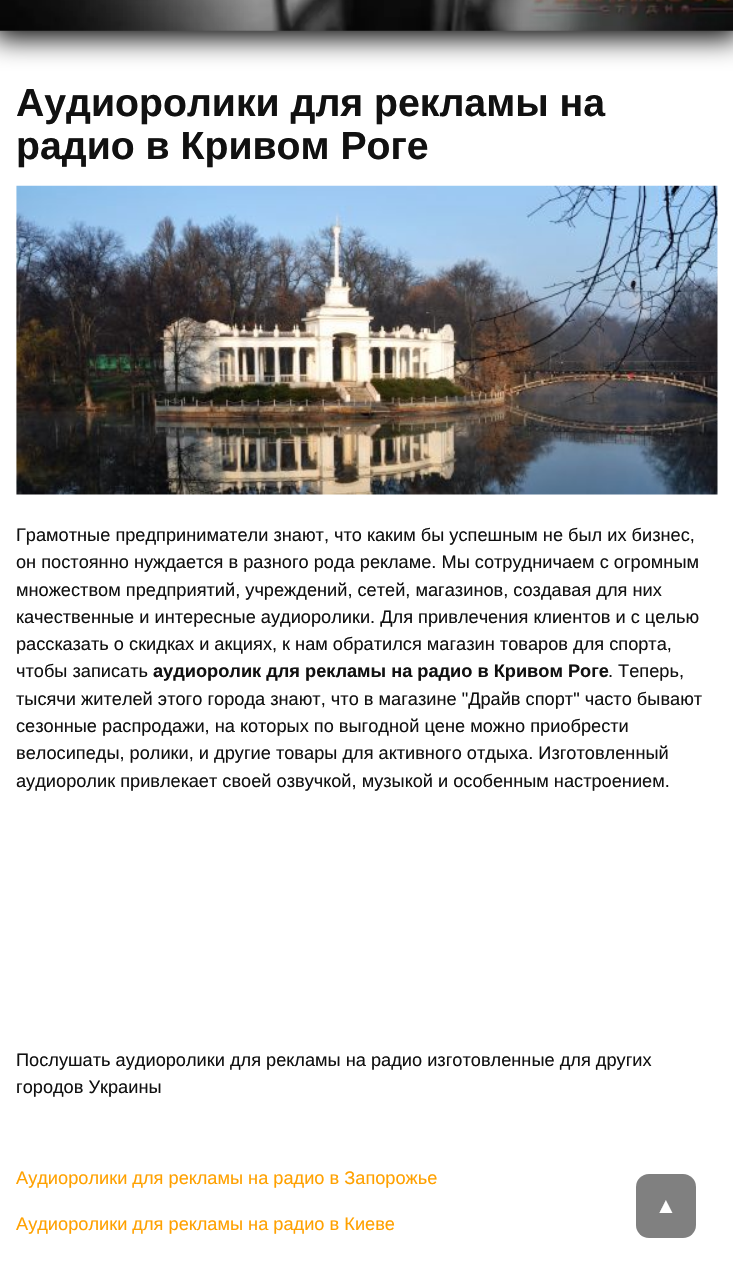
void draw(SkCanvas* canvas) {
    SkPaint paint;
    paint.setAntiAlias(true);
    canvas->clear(0xFFFFFFFF);
    paint.setColor(0xFF000000);
    paint.setMaskFilter(SkMaskFilter::MakeBlur(kNormal_SkBlurStyle, 14));
    canvas->drawRect(SkRect::MakeXYWH(-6, -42, 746, 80), paint);
    paint.setMaskFilter(nullptr);
    canvas->drawImageRect(SkImages::DeferredFromEncodedData(SkData::MakeFromFileName("img1.png")), SkRect::MakeXYWH(0, 0, 733, 31), SkSamplingOptions());
    SkFont font1(fontMgr->matchFamilyStyle("Liberation Sans", SkFontStyle::Bold()), 39.2f);
    font1.setSubpixel(true);
    paint.setColor(0xFF111111);
    canvas->drawString("Аудиоролики для рекламы на", 16, 116, font1, paint);
    canvas->drawString("радио в Кривом Роге", 16, 159, font1, paint);
    canvas->drawImageRect(SkImages::DeferredFromEncodedData(SkData::MakeFromFileName("img2.png")), SkRect::MakeXYWH(16, 185, 702, 310), SkSamplingOptions());
    SkFont font2(fontMgr->matchFamilyStyle("Liberation Sans", SkFontStyle::Normal()), 18.2f);
    font2.setSubpixel(true);
    canvas->drawString("Грамотные предприниматели знают, что каким бы успешным не был их бизнес,", 16, 541, font2, paint);
    canvas->drawString("он постоянно нуждается в разного рода рекламе. Мы сотрудничаем с огромным", 16, 568, font2, paint);
    canvas->drawString("множеством предприятий, учреждений, сетей, магазинов, создавая для них", 16, 596, font2, paint);
    canvas->drawString("качественные и интересные аудиоролики. Для привлечения клиентов и с целью", 16, 623, font2, paint);
    canvas->drawString("рассказать о скидках и акциях, к нам обратился магазин товаров для спорта,", 16, 650, font2, paint);
    canvas->drawString("чтобы записать", 16, 677, font2, paint);
    SkFont font3(fontMgr->matchFamilyStyle("Liberation Sans", SkFontStyle::Bold()), 18.2f);
    font3.setSubpixel(true);
    canvas->drawString("аудиоролик для рекламы на радио в Кривом Роге", 153, 677, font3, paint);
    canvas->drawString(". Теперь,", 608, 677, font2, paint);
    canvas->drawString("тысячи жителей этого города знают, что в магазине \"Драйв спорт\" часто бывают", 16, 705, font2, paint);
    canvas->drawString("сезонные распродажи, на которых по выгодной цене можно приобрести", 16, 732, font2, paint);
    canvas->drawString("велосипеды, ролики, и другие товары для активного отдыха. Изготовленный", 16, 759, font2, paint);
    canvas->drawString("аудиоролик привлекает своей озвучкой, музыкой и особенным настроением.", 16, 787, font2, paint);
    canvas->drawString("Послушать аудиоролики для рекламы на радио изготовленные для других", 16, 1066, font2, paint);
    canvas->drawString("городов Украины", 16, 1093, font2, paint);
    paint.setColor(0xFFFFA100);
    canvas->drawString("Аудиоролики для рекламы на радио в Запорожье", 16, 1184, font2, paint);
    canvas->drawString("Аудиоролики для рекламы на радио в Киеве", 16, 1230, font2, paint);
    paint.setColor(0xFF808080);
    canvas->drawRoundRect(SkRect::MakeXYWH(636, 1174, 60, 64), 13, 13, paint);
    SkFont font4(fontMgr->matchFamilyStyle("Liberation Sans", SkFontStyle::Normal()), 22);
    font4.setSubpixel(true);
    paint.setColor(0xFFFFFFFF);
    canvas->drawString("▲", 655, 1213, font4, paint);
}
